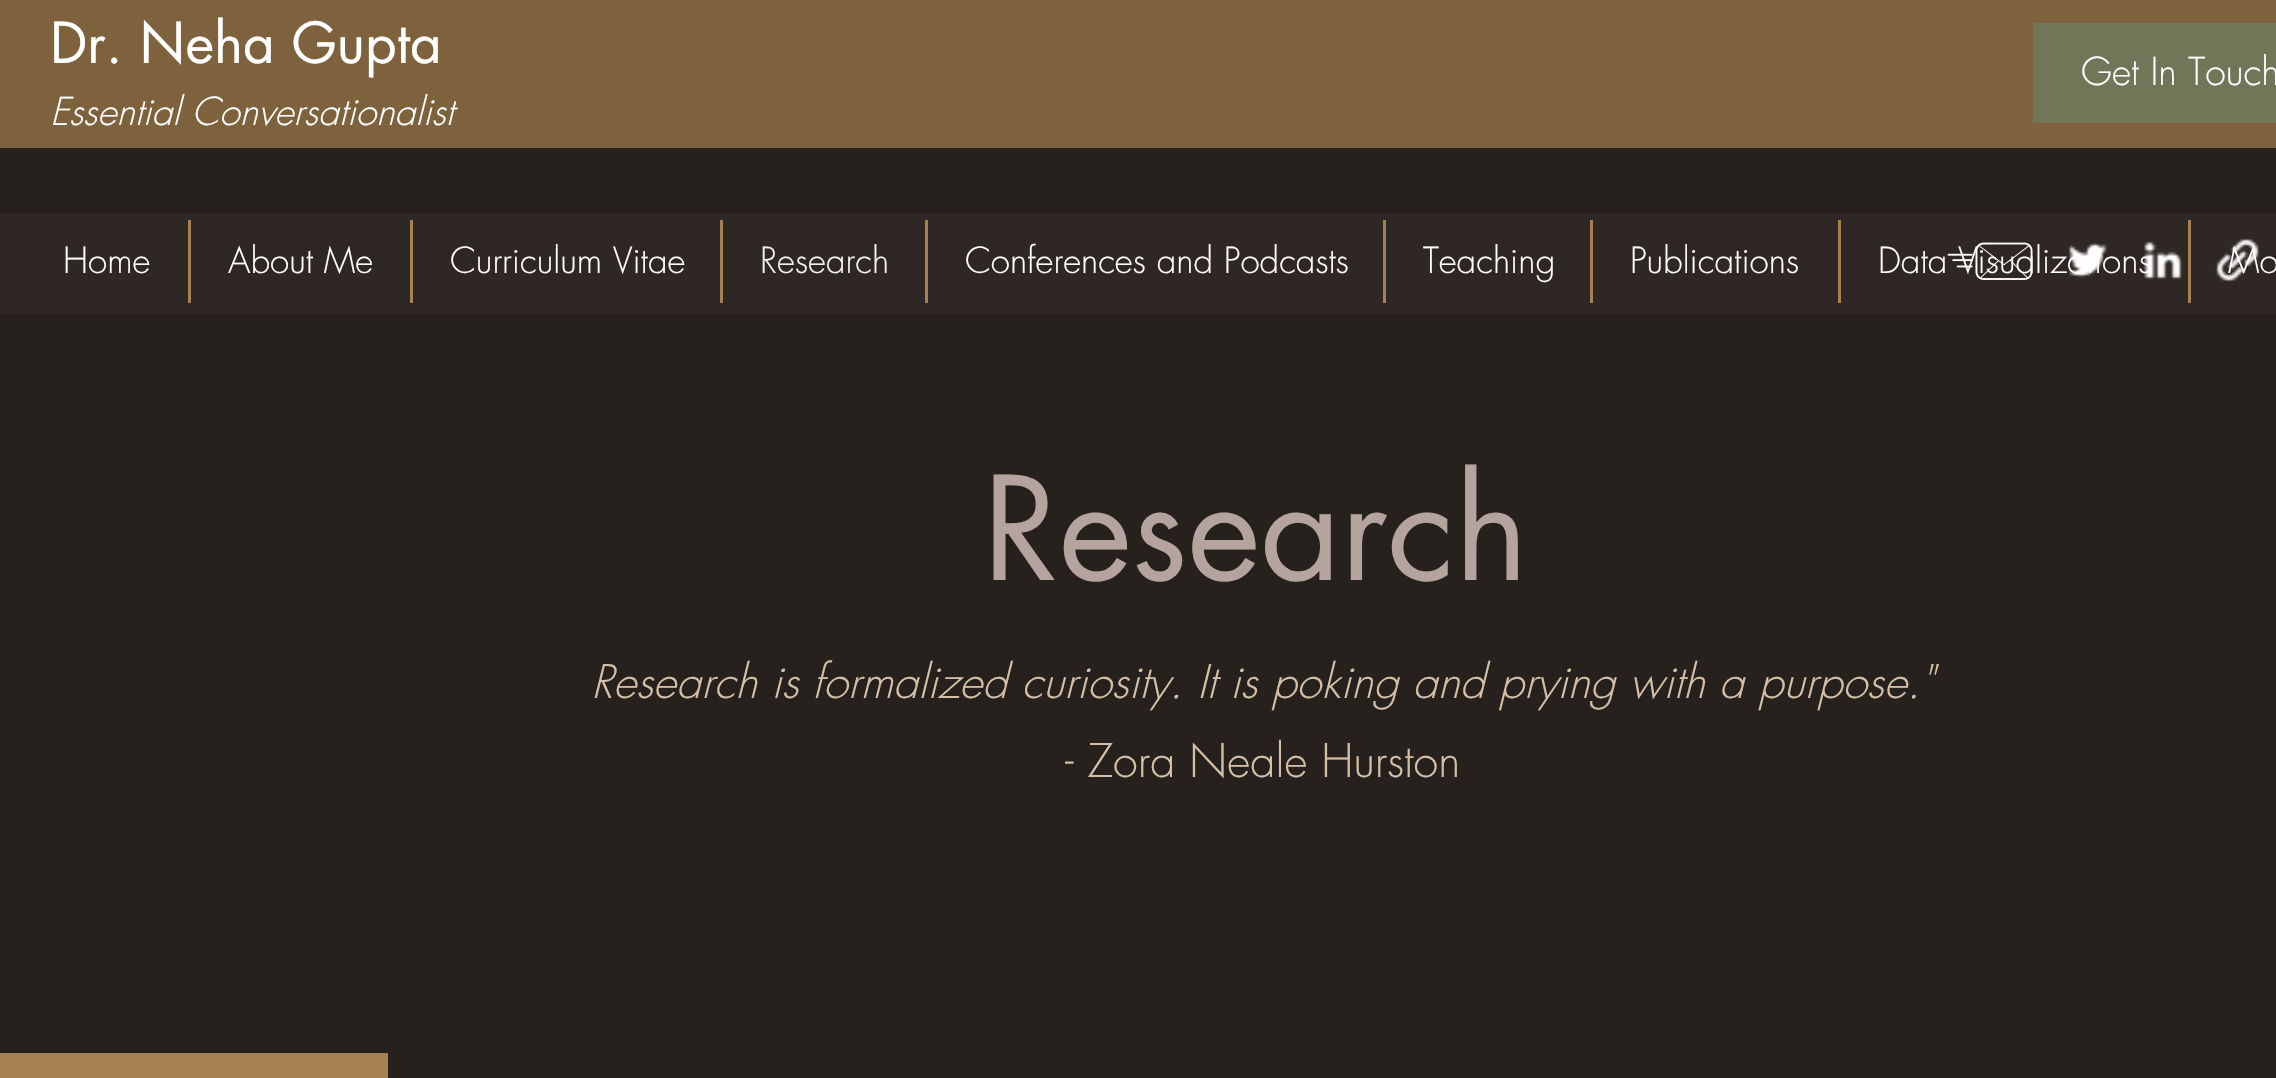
void draw(SkCanvas* canvas) {
    SkPaint paint;
    paint.setAntiAlias(true);
    canvas->clear(0xFF27211E);
    paint.setColor(0xFF7E613D);
    canvas->drawRect(SkRect::MakeXYWH(0, 0, 2276, 148), paint);
    SkFont font1(fontMgr->matchFamilyStyle("futura", SkFontStyle::Normal()), 55);
    font1.setSubpixel(true);
    paint.setColor(0xFFFFFFFF);
    canvas->drawString("Dr. Neha Gupta", 50, 63, font1, paint);
    SkFont font2(fontMgr->matchFamilyStyle("futura", SkFontStyle(300, SkFontStyle::kNormal_Width, SkFontStyle::kItalic_Slant)), 37.5f);
    font2.setSubpixel(true);
    canvas->drawString("Essential Conversationalist", 50, 125, font2, paint);
    paint.setColor(0xFF727557);
    canvas->drawRect(SkRect::MakeXYWH(2033, 23, 243, 100), paint);
    SkFont font3(fontMgr->matchFamilyStyle("futura", SkFontStyle(300, SkFontStyle::kNormal_Width, SkFontStyle::kUpright_Slant)), 37.5f);
    font3.setSubpixel(true);
    paint.setColor(0xFFFFFFFF);
    canvas->drawString("Get In Touch", 2081, 85, font3, paint);
    paint.setColor(0xFF2F2724);
    canvas->drawRect(SkRect::MakeXYWH(0, 213, 2276, 100), paint);
    SkFont font4(fontMgr->matchFamilyStyle("futura", SkFontStyle(300, SkFontStyle::kNormal_Width, SkFontStyle::kUpright_Slant)), 35);
    font4.setSubpixel(true);
    paint.setColor(0xFFFFFFFF);
    canvas->drawString("Data Visualizations", 1878, 273, font4, paint);
    canvas->drawImageRect(SkImages::DeferredFromEncodedData(SkData::MakeFromFileName("img1.png")), SkRect::MakeXYWH(1947, 242, 86, 38), SkSamplingOptions());
    canvas->drawImageRect(SkImages::DeferredFromEncodedData(SkData::MakeFromFileName("img2.png")), SkRect::MakeXYWH(2067, 242, 41, 36), SkSamplingOptions());
    canvas->drawImageRect(SkImages::DeferredFromEncodedData(SkData::MakeFromFileName("img3.png")), SkRect::MakeXYWH(2143, 241, 40, 39), SkSamplingOptions());
    canvas->drawString("Mo", 2228, 273, font4, paint);
    canvas->drawImageRect(SkImages::DeferredFromEncodedData(SkData::MakeFromFileName("img4.png")), SkRect::MakeXYWH(2215, 238, 45, 44), SkSamplingOptions());
    canvas->drawString("Home", 63, 273, font4, paint);
    paint.setColor(0xFFA88151);
    canvas->drawRect(SkRect::MakeXYWH(188, 220, 3, 83), paint);
    paint.setColor(0xFFFFFFFF);
    canvas->drawString("About Me", 228, 273, font4, paint);
    paint.setColor(0xFFA88151);
    canvas->drawRect(SkRect::MakeXYWH(410, 220, 3, 83), paint);
    paint.setColor(0xFFFFFFFF);
    canvas->drawString("Curriculum Vitae", 450, 273, font4, paint);
    paint.setColor(0xFFA88151);
    canvas->drawRect(SkRect::MakeXYWH(720, 220, 3, 83), paint);
    paint.setColor(0xFFF3F4F0);
    canvas->drawString("Research", 760, 273, font4, paint);
    paint.setColor(0xFFA88151);
    canvas->drawRect(SkRect::MakeXYWH(925, 220, 3, 83), paint);
    paint.setColor(0xFFFFFFFF);
    canvas->drawString("Conferences and Podcasts", 965, 273, font4, paint);
    paint.setColor(0xFFA88151);
    canvas->drawRect(SkRect::MakeXYWH(1383, 220, 3, 83), paint);
    paint.setColor(0xFFFFFFFF);
    canvas->drawString("Teaching", 1423, 273, font4, paint);
    paint.setColor(0xFFA88151);
    canvas->drawRect(SkRect::MakeXYWH(1590, 220, 3, 83), paint);
    paint.setColor(0xFFFFFFFF);
    canvas->drawString("Publications", 1630, 273, font4, paint);
    paint.setColor(0xFFA88151);
    canvas->drawRect(SkRect::MakeXYWH(1838, 220, 3, 83), paint);
    canvas->drawRect(SkRect::MakeXYWH(2188, 220, 3, 83), paint);
    SkFont font5(fontMgr->matchFamilyStyle("futura", SkFontStyle::Normal()), 140);
    font5.setSubpixel(true);
    paint.setColor(0xFFB5A49E);
    canvas->drawString("Research", 983, 580, font5, paint);
    SkFont font6(fontMgr->matchFamilyStyle("futura", SkFontStyle(300, SkFontStyle::kNormal_Width, SkFontStyle::kItalic_Slant)), 45);
    font6.setSubpixel(true);
    paint.setColor(0xFFD5C0A7);
    canvas->drawString("Research is formalized curiosity. It is poking and prying with a purpose.\"", 591, 698, font6, paint);
    SkFont font7(fontMgr->matchFamilyStyle("futura", SkFontStyle(300, SkFontStyle::kNormal_Width, SkFontStyle::kUpright_Slant)), 45);
    font7.setSubpixel(true);
    canvas->drawString("- Zora Neale Hurston", 1065, 777, font7, paint);
    paint.setColor(0xFFA88151);
    canvas->drawRect(SkRect::MakeXYWH(0, 1053, 388, 25), paint);
}
